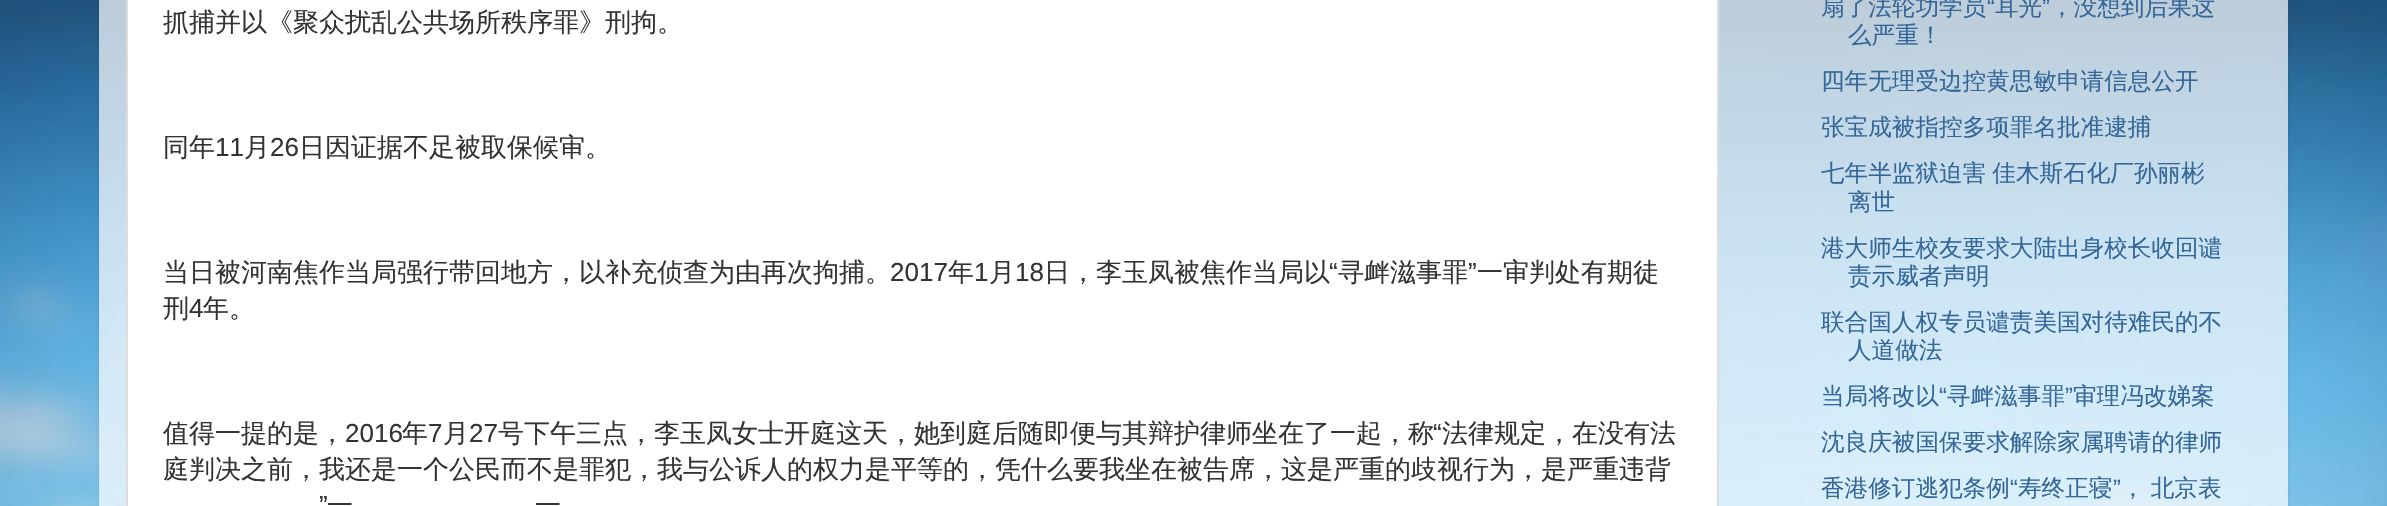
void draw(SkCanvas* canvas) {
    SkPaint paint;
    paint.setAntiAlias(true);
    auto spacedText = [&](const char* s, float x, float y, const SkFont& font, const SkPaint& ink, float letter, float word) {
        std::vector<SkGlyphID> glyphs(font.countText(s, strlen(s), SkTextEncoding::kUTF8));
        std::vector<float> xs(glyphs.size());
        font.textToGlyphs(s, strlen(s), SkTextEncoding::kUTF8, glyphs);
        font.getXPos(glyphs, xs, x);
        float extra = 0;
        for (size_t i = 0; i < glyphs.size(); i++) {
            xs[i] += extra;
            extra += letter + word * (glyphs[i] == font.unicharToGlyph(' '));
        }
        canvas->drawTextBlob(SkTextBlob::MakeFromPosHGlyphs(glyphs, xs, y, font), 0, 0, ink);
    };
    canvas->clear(0xFFFFFFFF);
    canvas->drawImageRect(SkImages::DeferredFromEncodedData(SkData::MakeFromFileName("img1.png")), SkRect::MakeXYWH(0, 0, 2387, 506), SkSamplingOptions());
    canvas->save();
    canvas->clipPath(SkPathBuilder(SkPathFillType::kEvenOdd).moveTo(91, 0).lineTo(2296, 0).lineTo(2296, 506).lineTo(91, 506).close().moveTo(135, -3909).lineTo(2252, -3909).cubicTo(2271.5f, -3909, 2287, -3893.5f, 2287, -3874).lineTo(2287, 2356).lineTo(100, 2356).lineTo(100, -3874).cubicTo(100, -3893.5f, 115.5f, -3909, 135, -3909).close().detach(), true);
    paint.setColor(0x26000000);
    paint.setMaskFilter(SkMaskFilter::MakeBlur(kNormal_SkBlurStyle, 2.5f));
    canvas->drawRoundRect(SkRect::MakeXYWH(100, -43, 2187, 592), 35, 35, paint);
    paint.setMaskFilter(nullptr);
    canvas->restore();
    paint.setColor(0xB3FFFFFF);
    canvas->drawRect(SkRect::MakeXYWH(99, 0, 2189, 506), paint);
    paint.setColor(0xFFFFFFFF);
    canvas->drawRect(SkRect::MakeXYWH(127, -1, 1591, 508), paint);
    paint.setStyle(SkPaint::kStroke_Style);
    paint.setStrokeWidth(2);
    paint.setColor(0xFFDDDDDD);
    canvas->drawRect(SkRect::MakeXYWH(127, -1, 1591, 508), paint);
    SkFont font1(fontMgr->matchFamilyStyle("WenQuanYi Zen Hei", SkFontStyle(500, SkFontStyle::kNormal_Width, SkFontStyle::kUpright_Slant)), 26);
    font1.setSubpixel(true);
    paint.setStyle(SkPaint::kFill_Style);
    paint.setColor(0xFF333333);
    canvas->drawString("抓捕并以《聚众扰乱公共场所秩序罪》刑拘。", 163, 31, font1, paint);
    canvas->drawString("同年", 163, 156, font1, paint);
    SkFont font2(fontMgr->matchFamilyStyle("Liberation Sans", SkFontStyle::Normal()), 26);
    font2.setSubpixel(true);
    canvas->drawString("11", 215, 156, font2, paint);
    canvas->drawString("月", 244, 156, font1, paint);
    canvas->drawString("26", 270, 156, font2, paint);
    canvas->drawString("日因证据不足被取保候审。", 299, 156, font1, paint);
    canvas->drawString("当日被河南焦作当局强行带回地方，以补充侦查为由再次拘捕。", 163, 281, font1, paint);
    canvas->drawString("2017", 890, 281, font2, paint);
    canvas->drawString("年", 948, 281, font1, paint);
    canvas->drawString("1", 974, 281, font2, paint);
    canvas->drawString("月", 989, 281, font1, paint);
    canvas->drawString("18", 1015, 281, font2, paint);
    canvas->drawString("日，李玉凤被焦作当局以", 1044, 281, font1, paint);
    canvas->drawString("“", 1329, 281, font2, paint);
    canvas->drawString("寻衅滋事罪", 1338, 281, font1, paint);
    canvas->drawString("”", 1468, 281, font2, paint);
    canvas->drawString("一审判处有期徒", 1477, 281, font1, paint);
    canvas->drawString("刑", 163, 317, font1, paint);
    canvas->drawString("4", 189, 317, font2, paint);
    canvas->drawString("年。", 203, 317, font1, paint);
    canvas->drawString("值得一提的是，", 163, 442, font1, paint);
    canvas->drawString("2016", 345, 442, font2, paint);
    canvas->drawString("年", 402, 442, font1, paint);
    canvas->drawString("7", 428, 442, font2, paint);
    canvas->drawString("月", 443, 442, font1, paint);
    canvas->drawString("27", 469, 442, font2, paint);
    canvas->drawString("号下午三点，李玉凤女士开庭这天，她到庭后随即便与其辩护律师坐在了一起，称", 498, 442, font1, paint);
    canvas->drawString("“", 1433, 442, font2, paint);
    canvas->drawString("法律规定，在没有法", 1442, 442, font1, paint);
    canvas->drawString("庭判决之前，我还是一个公民而不是罪犯，我与公诉人的权力是平等的，凭什么要我坐在被告席，这是严重的歧视行为，是严重违背", 163, 478, font1, paint);
    canvas->drawString("”", 319, 514, font2, paint);
    canvas->drawString("一", 327, 514, font1, paint);
    canvas->drawString("一", 535, 514, font1, paint);
    SkFont font3(fontMgr->matchFamilyStyle("WenQuanYi Zen Hei", SkFontStyle(500, SkFontStyle::kNormal_Width, SkFontStyle::kUpright_Slant)), 23.6f);
    font3.setSubpixel(true);
    paint.setColor(0xFF336699);
    canvas->drawString("扇了法轮功学员", 1821, 15, font3, paint);
    SkFont font4(fontMgr->matchFamilyStyle("Liberation Sans", SkFontStyle::Normal()), 23.6f);
    font4.setSubpixel(true);
    canvas->drawString("“", 1987, 15, font4, paint);
    canvas->drawString("耳光", 1995, 15, font3, paint);
    canvas->drawString("”", 2042, 15, font4, paint);
    canvas->drawString("，没想到后果这", 2050, 15, font3, paint);
    canvas->drawString("么严重！", 1848, 43, font3, paint);
    canvas->drawString("四年无理受边控黄思敏申请信息公开", 1821, 89, font3, paint);
    canvas->drawString("张宝成被指控多项罪名批准逮捕", 1821, 135, font3, paint);
    spacedText("七年半监狱迫害 佳木斯石化厂孙丽彬", 1821, 181, font3, paint, 0, -1);
    canvas->drawString("离世", 1848, 210, font3, paint);
    canvas->drawString("港大师生校友要求大陆出身校长收回谴", 1821, 256, font3, paint);
    canvas->drawString("责示威者声明", 1848, 284, font3, paint);
    canvas->drawString("联合国人权专员谴责美国对待难民的不", 1821, 330, font3, paint);
    canvas->drawString("人道做法", 1848, 358, font3, paint);
    canvas->drawString("当局将改以", 1821, 404, font3, paint);
    canvas->drawString("“", 1939, 404, font4, paint);
    canvas->drawString("寻衅滋事罪", 1947, 404, font3, paint);
    canvas->drawString("”", 2065, 404, font4, paint);
    canvas->drawString("审理冯改娣案", 2073, 404, font3, paint);
    canvas->drawString("沈良庆被国保要求解除家属聘请的律师", 1821, 450, font3, paint);
    canvas->drawString("香港修订逃犯条例", 1821, 496, font3, paint);
    canvas->drawString("“", 2010, 496, font4, paint);
    canvas->drawString("寿终正寝", 2018, 496, font3, paint);
    canvas->drawString("”", 2113, 496, font4, paint);
    spacedText("， 北京表", 2121, 496, font3, paint, 0, -1);
}
